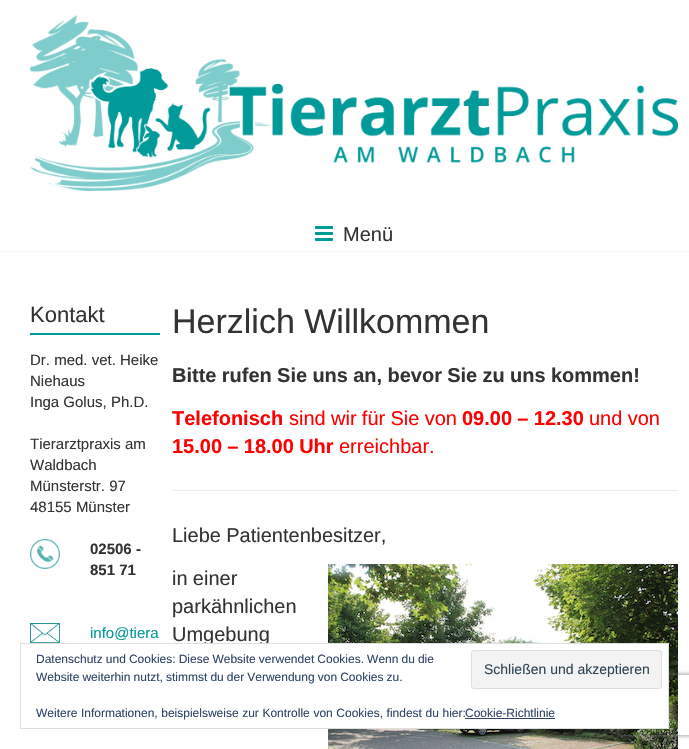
void draw(SkCanvas* canvas) {
    SkPaint paint;
    paint.setAntiAlias(true);
    auto spacedText = [&](const char* s, float x, float y, const SkFont& font, const SkPaint& ink, float letter, float word) {
        std::vector<SkGlyphID> glyphs(font.countText(s, strlen(s), SkTextEncoding::kUTF8));
        std::vector<float> xs(glyphs.size());
        font.textToGlyphs(s, strlen(s), SkTextEncoding::kUTF8, glyphs);
        font.getXPos(glyphs, xs, x);
        float extra = 0;
        for (size_t i = 0; i < glyphs.size(); i++) {
            xs[i] += extra;
            extra += letter + word * (glyphs[i] == font.unicharToGlyph(' '));
        }
        canvas->drawTextBlob(SkTextBlob::MakeFromPosHGlyphs(glyphs, xs, y, font), 0, 0, ink);
    };
    canvas->clear(0xFFFFFFFF);
    canvas->drawImageRect(SkImages::DeferredFromEncodedData(SkData::MakeFromFileName("img1.png")), SkRect::MakeXYWH(30, 15, 648, 176), SkSamplingOptions());
    paint.setColor(0xFFF8F8F8);
    canvas->drawRect(SkRect::MakeXYWH(0, 251, 689, 1), paint);
    canvas->drawImageRect(SkImages::DeferredFromEncodedData(SkData::MakeFromFileName("img2.png")), SkRect::MakeXYWH(315, 226, 18, 15), SkSamplingOptions());
    SkFont font1(fontMgr->matchFamilyStyle("Liberation Sans", SkFontStyle::Normal()), 20);
    font1.setSubpixel(true);
    paint.setColor(0xFF333333);
    canvas->drawString("Menü", 343, 241, font1, paint);
    paint.setColor(0xFF009A98);
    canvas->drawRect(SkRect::MakeXYWH(30, 333, 130, 2), paint);
    SkFont font2(fontMgr->matchFamilyStyle("Liberation Sans", SkFontStyle::Normal()), 22);
    font2.setSubpixel(true);
    paint.setColor(0xFF333333);
    canvas->drawString("Kontakt", 30, 322, font2, paint);
    SkFont font3(fontMgr->matchFamilyStyle("Liberation Sans", SkFontStyle::Normal()), 15);
    font3.setSubpixel(true);
    canvas->drawString("Dr. med. vet. Heike", 30, 365, font3, paint);
    canvas->drawString("Niehaus", 30, 386, font3, paint);
    canvas->drawString("Inga Golus, Ph.D.", 30, 407, font3, paint);
    canvas->drawString("Tierarztpraxis am", 30, 449, font3, paint);
    canvas->drawString("Waldbach", 30, 470, font3, paint);
    canvas->drawString("Münsterstr. 97", 30, 491, font3, paint);
    canvas->drawString("48155 Münster", 30, 512, font3, paint);
    canvas->drawImageRect(SkImages::DeferredFromEncodedData(SkData::MakeFromFileName("img3.png")), SkRect::MakeXYWH(30, 539, 30, 30), SkSamplingOptions());
    SkFont font4(fontMgr->matchFamilyStyle("Liberation Sans", SkFontStyle::Bold()), 15);
    font4.setSubpixel(true);
    canvas->drawString("02506 -", 90, 554, font4, paint);
    canvas->drawString("851 71", 90, 575, font4, paint);
    canvas->drawImageRect(SkImages::DeferredFromEncodedData(SkData::MakeFromFileName("img4.png")), SkRect::MakeXYWH(30, 623, 30, 20), SkSamplingOptions());
    paint.setColor(0xFF009A98);
    canvas->drawString("info@tiera", 90, 638, font3, paint);
    SkFont font5(fontMgr->matchFamilyStyle("Liberation Sans", SkFontStyle::Normal()), 34);
    font5.setSubpixel(true);
    paint.setColor(0xFF333333);
    canvas->drawString("Herzlich Willkommen", 172, 333, font5, paint);
    SkFont font6(fontMgr->matchFamilyStyle("Liberation Sans", SkFontStyle::Bold()), 20);
    font6.setSubpixel(true);
    spacedText("Bitte rufen Sie uns an, bevor Sie zu uns kommen!", 172, 382, font6, paint, 0, -0.25f);
    paint.setColor(0xFFFF0000);
    canvas->drawString("Telefonisch", 172, 425, font6, paint);
    spacedText("sind wir für Sie von", 289, 425, font1, paint, 0, -0.25f);
    spacedText("09.00 – 12.30", 462, 425, font6, paint, 0, -0.25f);
    spacedText("und von", 589, 425, font1, paint, 0, -0.25f);
    spacedText("15.00 – 18.00 Uhr", 172, 453, font6, paint, 0, -0.25f);
    canvas->drawString("erreichbar.", 339, 453, font1, paint);
    paint.setColor(0xFFEAEAEA);
    canvas->drawRect(SkRect::MakeXYWH(172, 490, 506, 1), paint);
    paint.setColor(0xFF333333);
    spacedText("Liebe Patientenbesitzer,", 172, 542, font1, paint, 0, -0.25f);
    spacedText("in einer", 172, 585, font1, paint, 0, -0.25f);
    canvas->drawImageRect(SkImages::DeferredFromEncodedData(SkData::MakeFromFileName("img5.png")), SkRect::MakeXYWH(328, 564, 350, 185), SkSamplingOptions());
    canvas->drawString("parkähnlichen", 172, 613, font1, paint);
    canvas->drawString("Umgebung", 172, 641, font1, paint);
    canvas->save();
    canvas->clipPath(SkPathBuilder(SkPathFillType::kEvenOdd).moveTo(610, 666).lineTo(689, 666).lineTo(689, 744).lineTo(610, 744).close().moveTo(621, 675).lineTo(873, 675).cubicTo(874, 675, 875, 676, 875, 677).lineTo(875, 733).cubicTo(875, 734, 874, 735, 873, 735).lineTo(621, 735).cubicTo(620, 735, 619, 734, 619, 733).lineTo(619, 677).cubicTo(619, 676, 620, 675, 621, 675).close().detach(), true);
    paint.setColor(0xFF808080);
    paint.setMaskFilter(SkMaskFilter::MakeBlur(kNormal_SkBlurStyle, 2.5f));
    canvas->drawRoundRect(SkRect::MakeXYWH(619, 675, 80, 60), 2, 2, paint);
    paint.setMaskFilter(nullptr);
    canvas->restore();
    paint.setColor(0xFFFFFFFF);
    canvas->drawRect(SkRect::MakeXYWH(205, 644, 463, 84), paint);
    paint.setStyle(SkPaint::kStroke_Style);
    paint.setStrokeWidth(1);
    paint.setColor(0xFFDEDEDE);
    canvas->drawRect(SkRect::MakeXYWH(20.5f, 643.5f, 648, 85), paint);
    SkFont font7(fontMgr->matchFamilyStyle("Liberation Sans", SkFontStyle::Normal()), 12);
    font7.setSubpixel(true);
    paint.setStyle(SkPaint::kFill_Style);
    paint.setColor(0xFF2E4467);
    spacedText("Datenschutz und Cookies: Diese Website verwendet Cookies. Wenn du die", 36, 663, font7, paint, 0, -0.25f);
    spacedText("Website weiterhin nutzt, stimmst du der Verwendung von Cookies zu.", 36, 681, font7, paint, 0, -0.25f);
    paint.setColor(0xFFF3F3F3);
    canvas->drawRoundRect(SkRect::MakeXYWH(471.5f, 650.5f, 190, 38), 2.5f, 2.5f, paint);
    paint.setStyle(SkPaint::kStroke_Style);
    paint.setColor(0xFFDEDEDE);
    canvas->drawRoundRect(SkRect::MakeXYWH(471.5f, 650.5f, 190, 38), 2.5f, 2.5f, paint);
    SkFont font8(fontMgr->matchFamilyStyle("Liberation Sans", SkFontStyle::Normal()), 14);
    font8.setSubpixel(true);
    paint.setStyle(SkPaint::kFill_Style);
    paint.setColor(0xFF2E4453);
    canvas->drawString("Schließen und akzeptieren", 484, 674, font8, paint);
    paint.setColor(0xFF2E4467);
    spacedText("Weitere Informationen, beispielsweise zur Kontrolle von Cookies, findest du hier:", 36, 717, font7, paint, 0, 0.25f);
    canvas->drawString("Cookie-Richtlinie", 465, 717, font7, paint);
    canvas->drawRect(SkRect::MakeXYWH(465, 718, 90, 1), paint);
}
